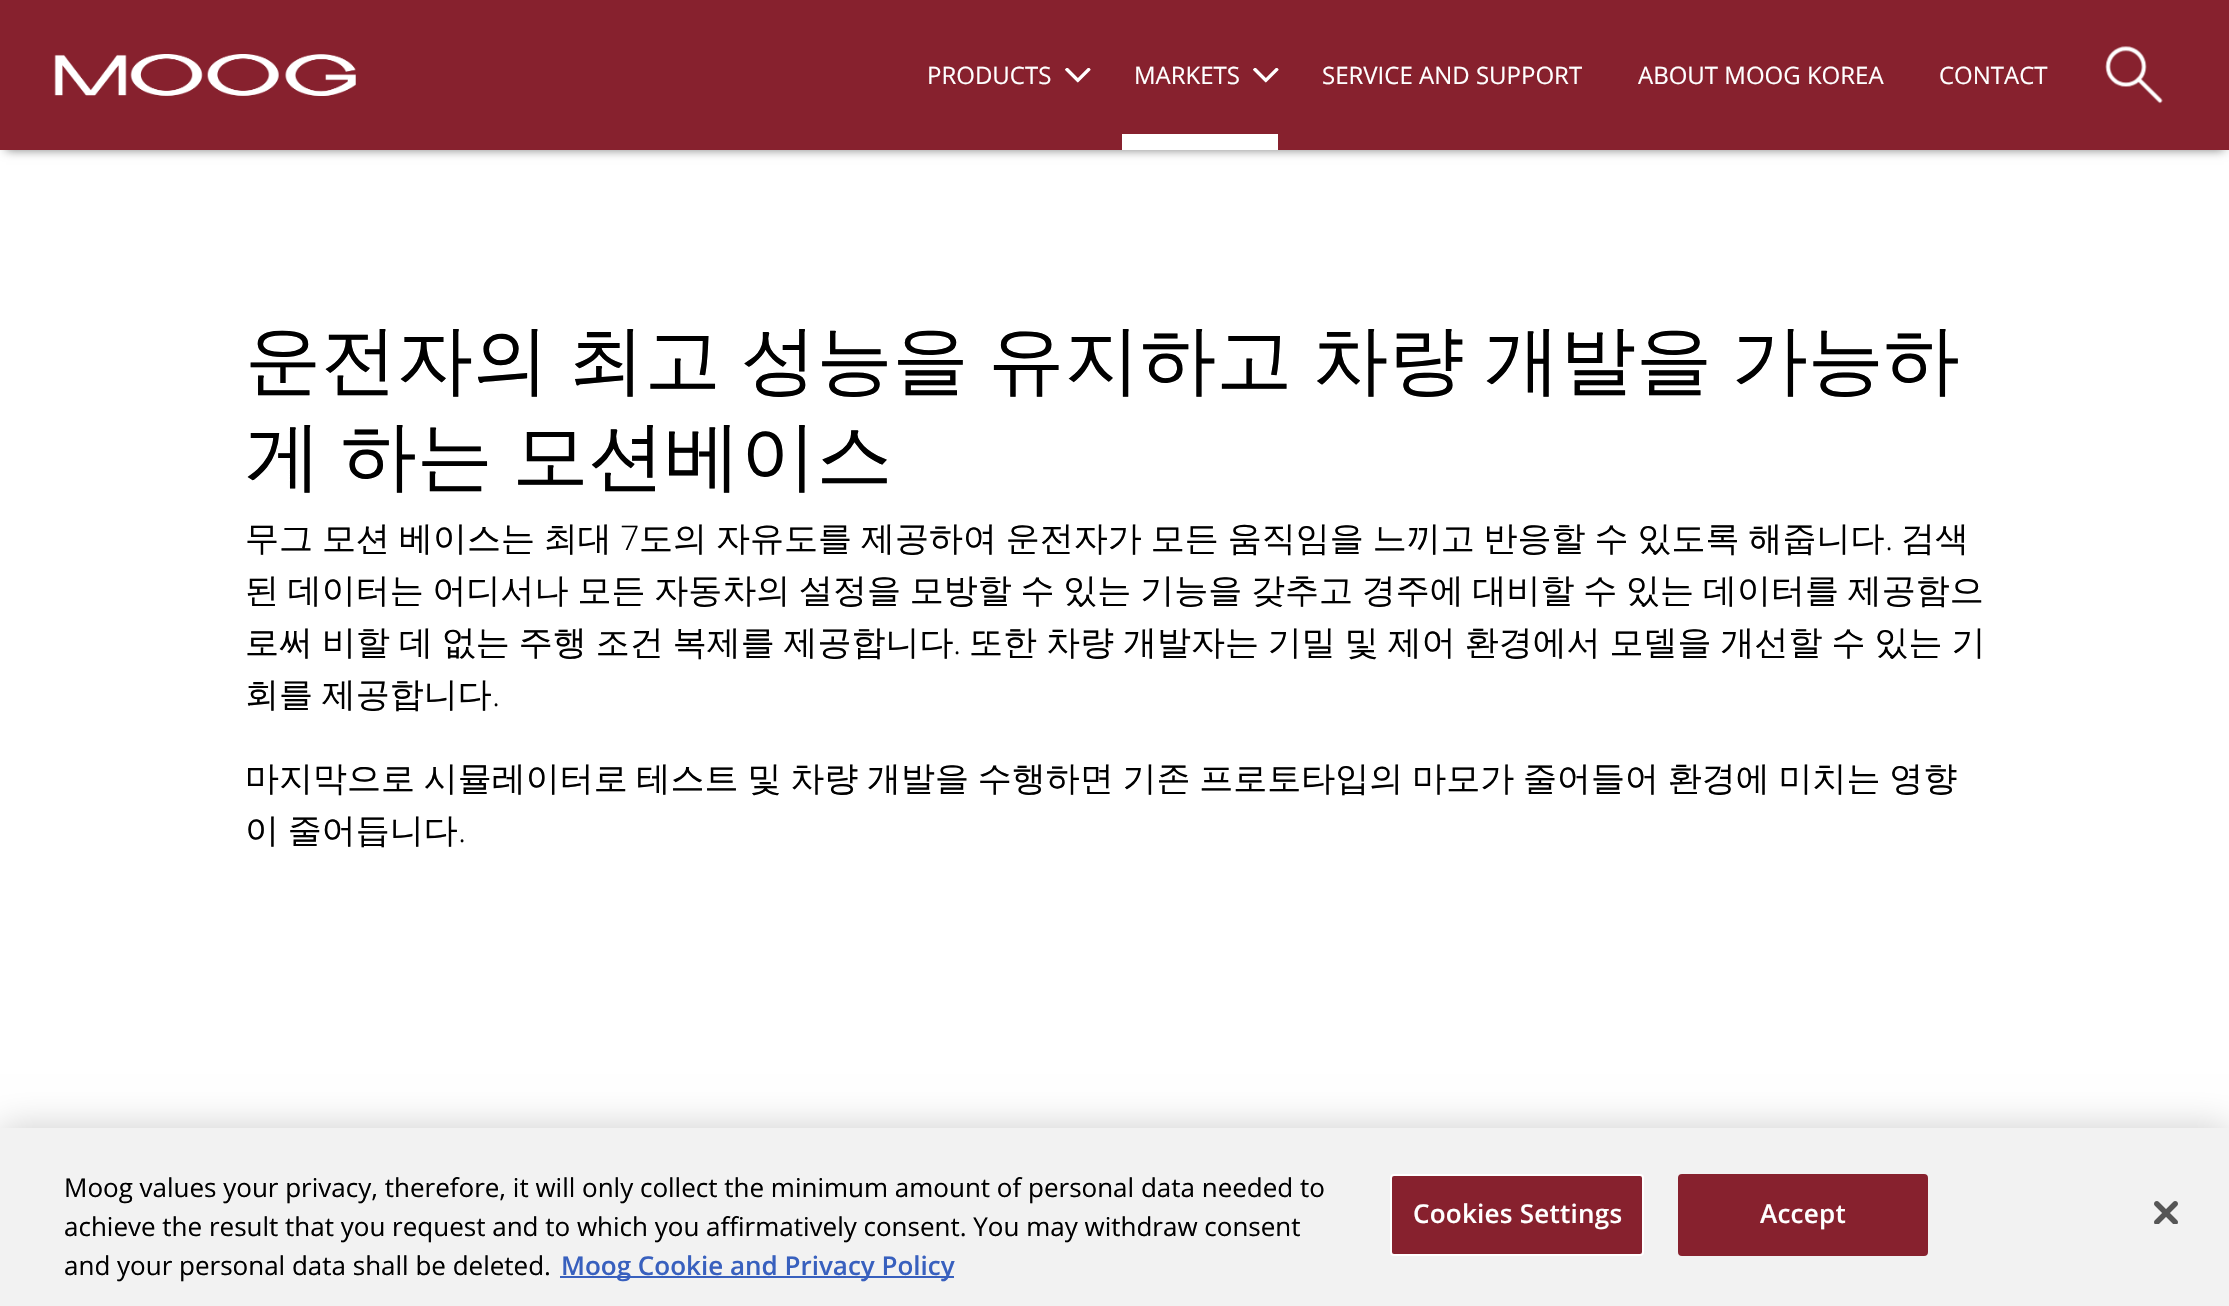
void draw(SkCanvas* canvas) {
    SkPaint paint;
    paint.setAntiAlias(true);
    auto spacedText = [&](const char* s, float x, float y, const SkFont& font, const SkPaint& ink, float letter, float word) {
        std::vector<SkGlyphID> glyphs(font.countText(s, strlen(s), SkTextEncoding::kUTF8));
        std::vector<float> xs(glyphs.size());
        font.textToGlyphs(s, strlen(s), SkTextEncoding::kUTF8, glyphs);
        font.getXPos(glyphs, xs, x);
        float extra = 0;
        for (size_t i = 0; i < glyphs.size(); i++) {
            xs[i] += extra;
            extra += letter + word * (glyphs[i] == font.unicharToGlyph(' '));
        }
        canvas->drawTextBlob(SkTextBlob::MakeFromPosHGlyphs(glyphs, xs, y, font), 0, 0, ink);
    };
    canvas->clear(0xFFFFFFFF);
    paint.setColor(0xFF808080);
    paint.setMaskFilter(SkMaskFilter::MakeBlur(kNormal_SkBlurStyle, 5));
    canvas->drawRect(SkRect::MakeXYWH(6, 12, 2218, 138), paint);
    paint.setMaskFilter(nullptr);
    paint.setColor(0xFF87212E);
    canvas->drawRect(SkRect::MakeXYWH(0, 0, 2229, 150), paint);
    canvas->drawImageRect(SkImages::DeferredFromEncodedData(SkData::MakeFromFileName("img1.png")), SkRect::MakeXYWH(54, 54, 302, 42), SkSamplingOptions());
    SkFont font1(fontMgr->matchFamilyStyle("Open Sans", SkFontStyle::Normal()), 24);
    font1.setSubpixel(true);
    paint.setColor(0xFFFFFFFF);
    canvas->drawString("PRODUCTS", 927, 84, font1, paint);
    canvas->drawImageRect(SkImages::DeferredFromEncodedData(SkData::MakeFromFileName("img2.png")), SkRect::MakeXYWH(1065, 68, 26, 15), SkSamplingOptions());
    canvas->drawRect(SkRect::MakeXYWH(1122, 134, 156, 16), paint);
    canvas->drawString("MARKETS", 1134, 84, font1, paint);
    canvas->drawImageRect(SkImages::DeferredFromEncodedData(SkData::MakeFromFileName("img2.png")), SkRect::MakeXYWH(1253, 68, 26, 15), SkSamplingOptions());
    canvas->drawString("SERVICE AND SUPPORT", 1322, 84, font1, paint);
    canvas->drawString("ABOUT MOOG KOREA", 1638, 84, font1, paint);
    canvas->drawString("CONTACT", 1939, 84, font1, paint);
    canvas->drawImageRect(SkImages::DeferredFromEncodedData(SkData::MakeFromFileName("img3.png")), SkRect::MakeXYWH(2105, 46, 58, 58), SkSamplingOptions());
    SkFont font2(fontMgr->matchFamilyStyle("WenQuanYi Zen Hei", SkFontStyle(500, SkFontStyle::kNormal_Width, SkFontStyle::kUpright_Slant)), 76);
    font2.setSubpixel(true);
    paint.setColor(0xFF000000);
    spacedText("운전자의 최고 성능을 유지하고 차량 개발을 가능하", 245, 386, font2, paint, 0, -3);
    spacedText("게 하는 모션베이스", 245, 482, font2, paint, 0, -3);
    SkFont font3(fontMgr->matchFamilyStyle("WenQuanYi Zen Hei", SkFontStyle(500, SkFontStyle::kNormal_Width, SkFontStyle::kUpright_Slant)), 34);
    font3.setSubpixel(true);
    spacedText("무그 모션 베이스는 최대", 245, 550, font3, paint, 0, -1.25f);
    SkFont font4(fontMgr->matchFamilyStyle("Open Sans", SkFontStyle(300, SkFontStyle::kNormal_Width, SkFontStyle::kUpright_Slant)), 34);
    font4.setSubpixel(true);
    canvas->drawString("7", 620, 550, font4, paint);
    spacedText("도의 자유도를 제공하여 운전자가 모든 움직임을 느끼고 반응할 수 있도록 해줍니다", 639, 550, font3, paint, 0, -1.25f);
    canvas->drawString(".", 1885, 550, font4, paint);
    canvas->drawString("검색", 1901, 550, font3, paint);
    spacedText("된 데이터는 어디서나 모든 자동차의 설정을 모방할 수 있는 기능을 갖추고 경주에 대비할 수 있는 데이터를 제공함으", 245, 602, font3, paint, 0, -1.4f);
    spacedText("로써 비할 데 없는 주행 조건 복제를 제공합니다", 245, 654, font3, paint, 0, -1.25f);
    canvas->drawString(".", 953, 654, font4, paint);
    spacedText("또한 차량 개발자는 기밀 및 제어 환경에서 모델을 개선할 수 있는 기", 969, 654, font3, paint, 0, -1.25f);
    spacedText("회를 제공합니다", 245, 706, font3, paint, 0, -1.4f);
    canvas->drawString(".", 492, 706, font4, paint);
    spacedText("마지막으로 시뮬레이터로 테스트 및 차량 개발을 수행하면 기존 프로토타입의 마모가 줄어들어 환경에 미치는 영향", 245, 790, font3, paint, 0, -1.4f);
    spacedText("이 줄어듭니다", 245, 842, font3, paint, 0, -1.4f);
    canvas->drawString(".", 458, 842, font4, paint);
    paint.setColor(0x33000000);
    paint.setMaskFilter(SkMaskFilter::MakeBlur(kNormal_SkBlurStyle, 18));
    canvas->drawRect(SkRect::MakeXYWH(0, 1128, 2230, 178), paint);
    paint.setMaskFilter(nullptr);
    paint.setColor(0xFFF2F2F2);
    canvas->drawRect(SkRect::MakeXYWH(0, 1128, 2229, 178), paint);
    SkFont font5(fontMgr->matchFamilyStyle("Open Sans", SkFontStyle::Normal()), 26);
    font5.setSubpixel(true);
    paint.setColor(0xFF000000);
    canvas->drawString("Moog values your privacy, therefore, it will only collect the minimum amount of personal data needed to", 64, 1197, font5, paint);
    canvas->drawString("achieve the result that you request and to which you affirmatively consent. You may withdraw consent", 64, 1236, font5, paint);
    canvas->drawString("and your personal data shall be deleted.", 64, 1275, font5, paint);
    paint.setColor(0xFF3860BE);
    canvas->drawRect(SkRect::MakeXYWH(560, 1276, 394, 2), paint);
    SkFont font6(fontMgr->matchFamilyStyle("Open Sans", SkFontStyle(600, SkFontStyle::kNormal_Width, SkFontStyle::kUpright_Slant)), 26);
    font6.setSubpixel(true);
    canvas->drawString("Moog Cookie and Privacy Policy", 561, 1275, font6, paint);
    paint.setColor(0xFF87212E);
    canvas->drawRoundRect(SkRect::MakeXYWH(1391, 1175, 252, 80), 3, 3, paint);
    paint.setStyle(SkPaint::kStroke_Style);
    paint.setStrokeWidth(2);
    paint.setColor(0xFFFFFFFF);
    canvas->drawRoundRect(SkRect::MakeXYWH(1391, 1175, 252, 80), 3, 3, paint);
    paint.setStyle(SkPaint::kFill_Style);
    spacedText("Cookies Settings", 1413, 1223, font6, paint, 0.25f, 0);
    paint.setColor(0xFF87212E);
    canvas->drawRoundRect(SkRect::MakeXYWH(1679, 1175, 248, 80), 3, 3, paint);
    paint.setStyle(SkPaint::kStroke_Style);
    canvas->drawRoundRect(SkRect::MakeXYWH(1679, 1175, 248, 80), 3, 3, paint);
    paint.setStyle(SkPaint::kFill_Style);
    paint.setColor(0xFFFFFFFF);
    spacedText("Accept", 1760, 1223, font6, paint, 0.25f, 0);
    canvas->drawImageRect(SkImages::DeferredFromEncodedData(SkData::MakeFromFileName("img4.png")), SkRect::MakeXYWH(2154, 1201, 24, 23), SkSamplingOptions());
}
